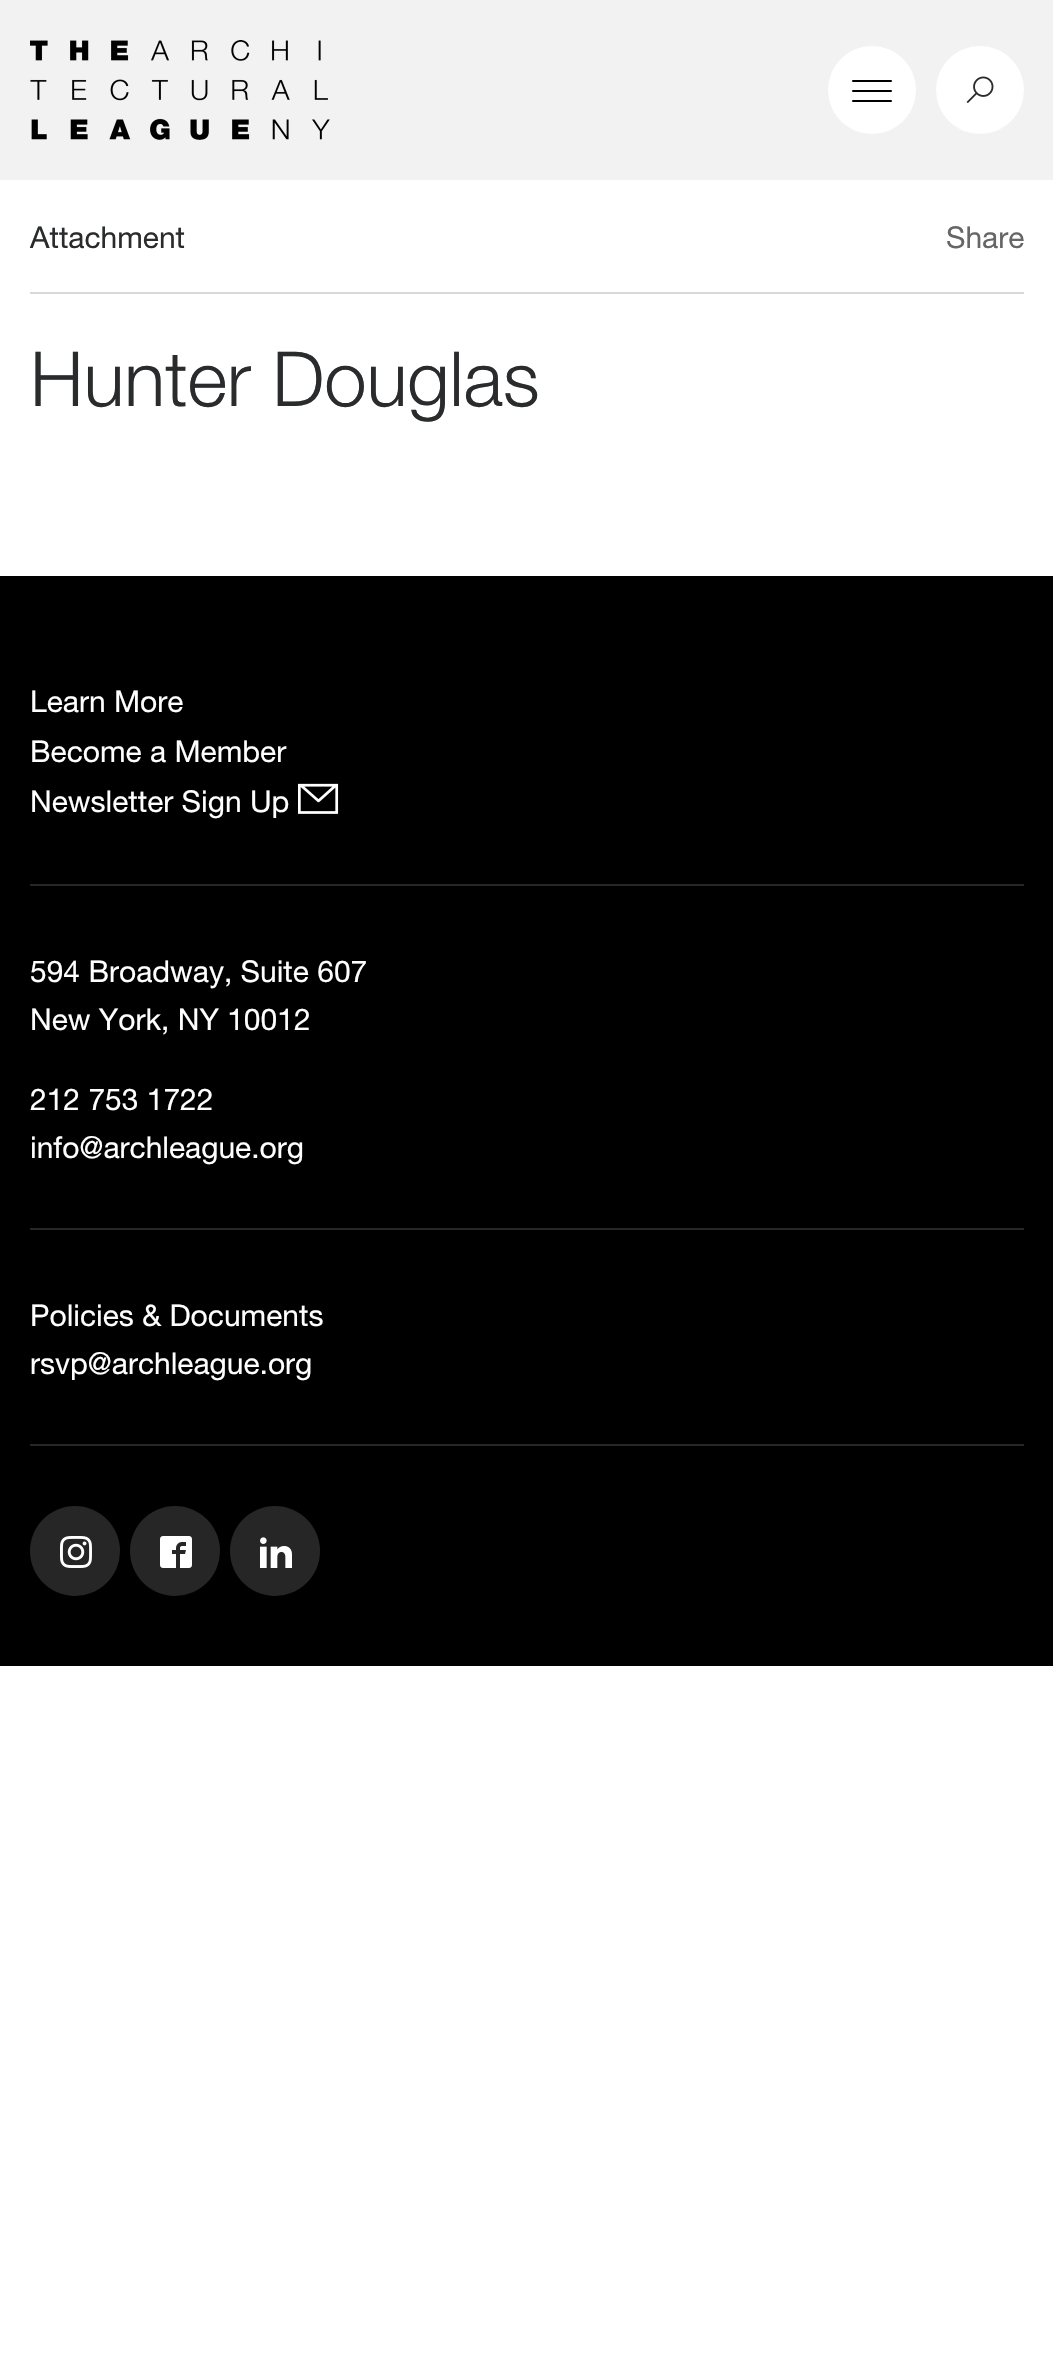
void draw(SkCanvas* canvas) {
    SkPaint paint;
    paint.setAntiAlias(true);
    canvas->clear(0xFFFFFFFF);
    paint.setColor(0xFFF2F2F2);
    canvas->drawRect(SkRect::MakeXYWH(0, 0, 1053, 180), paint);
    canvas->drawImageRect(SkImages::DeferredFromEncodedData(SkData::MakeFromFileName("img1.png")), SkRect::MakeXYWH(30, 40, 300, 100), SkSamplingOptions());
    paint.setColor(0xFFFFFFFF);
    canvas->drawCircle(872, 90, 44, paint);
    paint.setColor(0xFF000000);
    canvas->drawRoundRect(SkRect::MakeXYWH(852, 80, 40, 2), 1, 1, paint);
    canvas->drawRoundRect(SkRect::MakeXYWH(852, 90, 40, 2), 1, 1, paint);
    canvas->drawRoundRect(SkRect::MakeXYWH(852, 100, 40, 2), 1, 1, paint);
    paint.setColor(0xFFFFFFFF);
    canvas->drawCircle(980, 90, 44, paint);
    canvas->drawImageRect(SkImages::DeferredFromEncodedData(SkData::MakeFromFileName("img2.png")), SkRect::MakeXYWH(966, 76, 28, 28), SkSamplingOptions());
    paint.setColor(0xFFD8D8D8);
    canvas->drawRect(SkRect::MakeXYWH(30, 292, 994, 2), paint);
    SkFont font1(fontMgr->matchFamilyStyle("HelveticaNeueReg", SkFontStyle::Normal()), 30);
    font1.setSubpixel(true);
    paint.setColor(0xFF292B2C);
    canvas->drawString("Attachment", 30, 248, font1, paint);
    paint.setColor(0xFF666666);
    canvas->drawString("Share", 946, 248, font1, paint);
    SkFont font2(fontMgr->matchFamilyStyle("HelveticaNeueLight", SkFontStyle(300, SkFontStyle::kNormal_Width, SkFontStyle::kUpright_Slant)), 76);
    font2.setSubpixel(true);
    paint.setColor(0xFF292B2C);
    canvas->drawString("Hunter Douglas", 30, 406, font2, paint);
    paint.setColor(0xFF000000);
    canvas->drawRect(SkRect::MakeXYWH(0, 576, 1053, 1090), paint);
    paint.setColor(0xFFFFFFFF);
    canvas->drawString("Learn More", 30, 712, font1, paint);
    canvas->drawString("Become a Member", 30, 762, font1, paint);
    canvas->drawString("Newsletter Sign Up", 30, 812, font1, paint);
    canvas->drawImageRect(SkImages::DeferredFromEncodedData(SkData::MakeFromFileName("img3.png")), SkRect::MakeXYWH(298, 783, 41, 31), SkSamplingOptions());
    paint.setColor(0xFF262626);
    canvas->drawRect(SkRect::MakeXYWH(30, 884, 994, 2), paint);
    paint.setColor(0xFFFFFFFF);
    canvas->drawString("594 Broadway, Suite 607", 30, 982, font1, paint);
    canvas->drawString("New York, NY 10012", 30, 1030, font1, paint);
    canvas->drawString("212 753 1722", 30, 1110, font1, paint);
    canvas->drawString("info@archleague.org", 30, 1158, font1, paint);
    paint.setColor(0xFF262626);
    canvas->drawRect(SkRect::MakeXYWH(30, 1228, 994, 2), paint);
    paint.setColor(0xFFFFFFFF);
    canvas->drawString("Policies & Documents", 30, 1326, font1, paint);
    canvas->drawString("rsvp@archleague.org", 30, 1374, font1, paint);
    paint.setColor(0xFF262626);
    canvas->drawRect(SkRect::MakeXYWH(30, 1444, 994, 2), paint);
    canvas->drawCircle(75, 1551, 45, paint);
    canvas->drawImageRect(SkImages::DeferredFromEncodedData(SkData::MakeFromFileName("img4.png")), SkRect::MakeXYWH(60, 1536, 32, 32), SkSamplingOptions());
    canvas->drawCircle(175, 1551, 45, paint);
    canvas->drawImageRect(SkImages::DeferredFromEncodedData(SkData::MakeFromFileName("img5.png")), SkRect::MakeXYWH(160, 1536, 32, 32), SkSamplingOptions());
    canvas->drawCircle(275, 1551, 45, paint);
    canvas->drawImageRect(SkImages::DeferredFromEncodedData(SkData::MakeFromFileName("img6.png")), SkRect::MakeXYWH(260, 1537, 32, 31), SkSamplingOptions());
}
